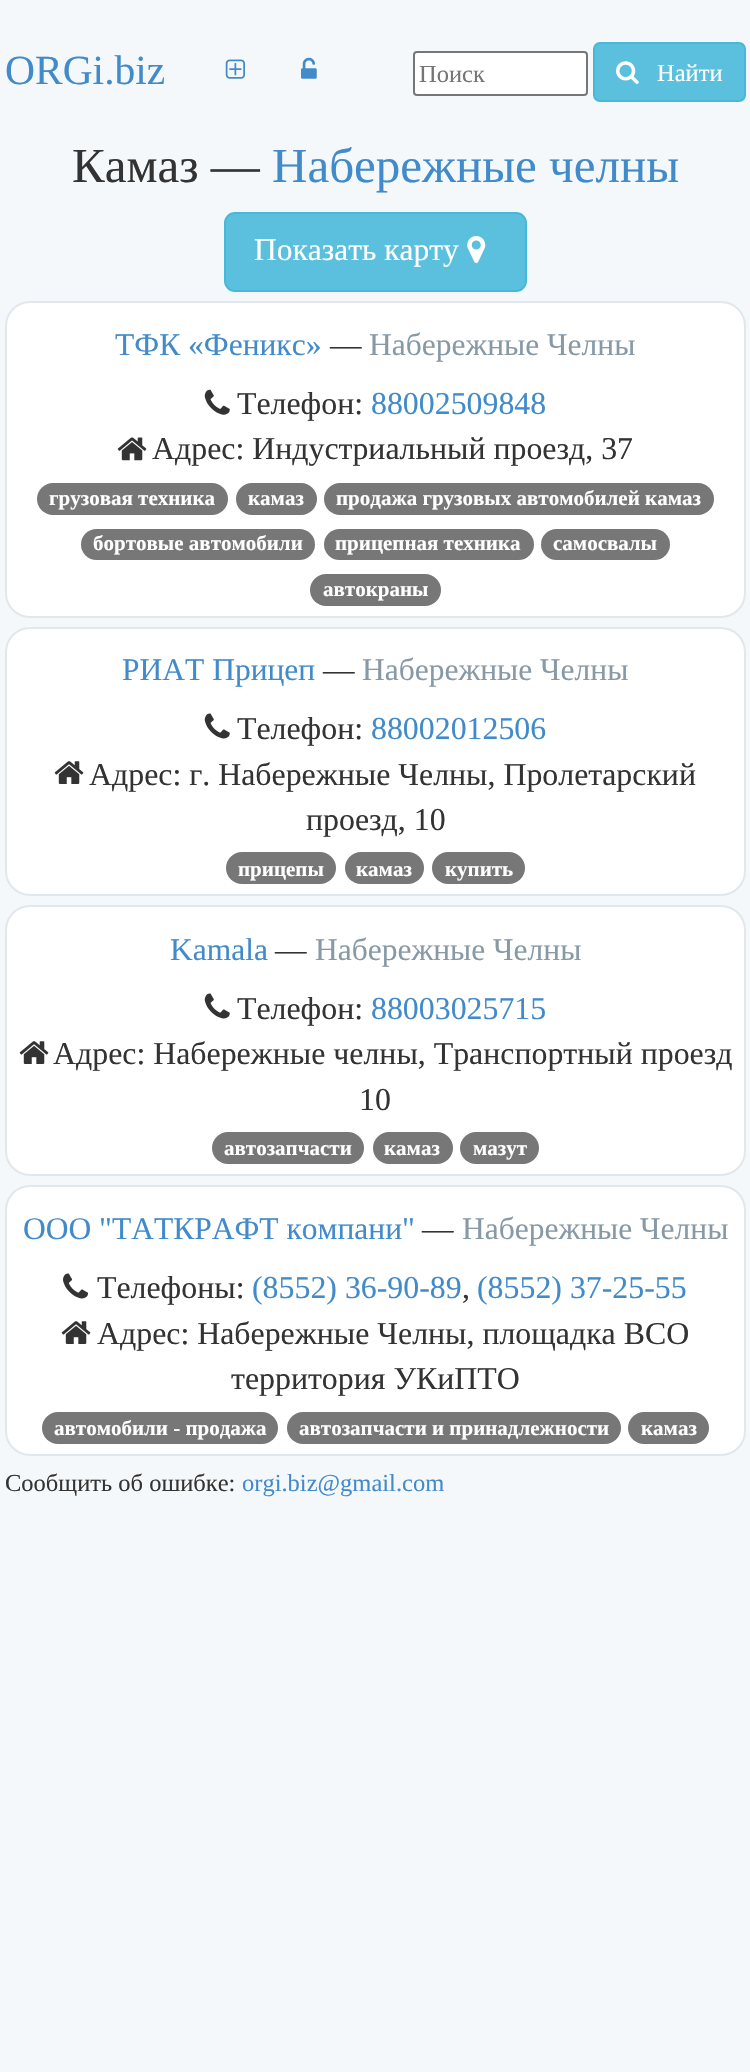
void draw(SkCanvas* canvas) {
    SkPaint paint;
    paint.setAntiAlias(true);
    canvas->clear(0xFFF5F8FA);
    SkFont font1(fontMgr->matchFamilyStyle("Liberation Serif", SkFontStyle::Normal()), 41.5f);
    font1.setSubpixel(true);
    paint.setColor(0xFF428BCA);
    canvas->drawString("ORGi.biz", 5, 84, font1, paint);
    canvas->drawImageRect(SkImages::DeferredFromEncodedData(SkData::MakeFromFileName("img1.png")), SkRect::MakeXYWH(225, 59, 20, 20), SkSamplingOptions());
    canvas->drawImageRect(SkImages::DeferredFromEncodedData(SkData::MakeFromFileName("img2.png")), SkRect::MakeXYWH(301, 57, 16, 22), SkSamplingOptions());
    paint.setColor(0xFFFFFFFF);
    canvas->drawRoundRect(SkRect::MakeXYWH(414, 52, 173, 43), 3, 3, paint);
    paint.setStyle(SkPaint::kStroke_Style);
    paint.setStrokeWidth(2);
    paint.setColor(0xFF767676);
    canvas->drawRoundRect(SkRect::MakeXYWH(414, 52, 173, 43), 3, 3, paint);
    SkFont font2(fontMgr->matchFamilyStyle("Liberation Serif", SkFontStyle::Normal()), 24.5f);
    font2.setSubpixel(true);
    paint.setStyle(SkPaint::kFill_Style);
    paint.setColor(0xFF757575);
    canvas->drawString("Поиск", 419, 82, font2, paint);
    paint.setColor(0xFF5BC0DE);
    canvas->drawRoundRect(SkRect::MakeXYWH(594, 43, 151, 58), 6, 6, paint);
    paint.setStyle(SkPaint::kStroke_Style);
    paint.setColor(0xFF46B8DA);
    canvas->drawRoundRect(SkRect::MakeXYWH(594, 43, 151, 58), 6, 6, paint);
    canvas->drawImageRect(SkImages::DeferredFromEncodedData(SkData::MakeFromFileName("img3.png")), SkRect::MakeXYWH(616, 61, 23, 23), SkSamplingOptions());
    paint.setStyle(SkPaint::kFill_Style);
    paint.setColor(0xFFFFFFFF);
    canvas->drawString("Найти", 657, 81, font2, paint);
    SkFont font3(fontMgr->matchFamilyStyle("Liberation Serif", SkFontStyle::Normal()), 49);
    font3.setSubpixel(true);
    paint.setColor(0xFF333333);
    canvas->drawString("Камаз —", 72, 182, font3, paint);
    paint.setColor(0xFF428BCA);
    canvas->drawString("Набережные челны", 272, 182, font3, paint);
    paint.setColor(0xFF5BC0DE);
    canvas->drawRoundRect(SkRect::MakeXYWH(225, 213, 301, 78), 10, 10, paint);
    paint.setStyle(SkPaint::kStroke_Style);
    paint.setColor(0xFF46B8DA);
    canvas->drawRoundRect(SkRect::MakeXYWH(225, 213, 301, 78), 10, 10, paint);
    SkFont font4(fontMgr->matchFamilyStyle("Liberation Serif", SkFontStyle::Normal()), 31.5f);
    font4.setSubpixel(true);
    paint.setStyle(SkPaint::kFill_Style);
    paint.setColor(0xFFFFFFFF);
    canvas->drawString("Показать карту", 254, 260, font4, paint);
    canvas->drawImageRect(SkImages::DeferredFromEncodedData(SkData::MakeFromFileName("img4.png")), SkRect::MakeXYWH(467, 236, 19, 27), SkSamplingOptions());
    canvas->drawRoundRect(SkRect::MakeXYWH(6, 302, 739, 315), 24, 24, paint);
    paint.setStyle(SkPaint::kStroke_Style);
    paint.setColor(0xFFE1E8ED);
    canvas->drawRoundRect(SkRect::MakeXYWH(6, 302, 739, 315), 24, 24, paint);
    paint.setStyle(SkPaint::kFill_Style);
    paint.setColor(0xFF428BCA);
    canvas->drawString("ТФК «Феникс»", 115, 355, font4, paint);
    paint.setColor(0xFF333333);
    canvas->drawString("—", 330, 355, font4, paint);
    paint.setColor(0xFF8899A6);
    canvas->drawString("Набережные Челны", 369, 355, font4, paint);
    canvas->drawImageRect(SkImages::DeferredFromEncodedData(SkData::MakeFromFileName("img5.png")), SkRect::MakeXYWH(204, 389, 26, 26), SkSamplingOptions());
    SkFont font5(fontMgr->matchFamilyStyle("Liberation Serif", SkFontStyle::Normal()), 31.85f);
    font5.setSubpixel(true);
    paint.setColor(0xFF333333);
    canvas->drawString("Телефон:", 237, 414, font5, paint);
    paint.setColor(0xFF428BCA);
    canvas->drawString("88002509848", 371, 414, font5, paint);
    canvas->drawImageRect(SkImages::DeferredFromEncodedData(SkData::MakeFromFileName("img6.png")), SkRect::MakeXYWH(117, 437, 30, 24), SkSamplingOptions());
    paint.setColor(0xFF333333);
    canvas->drawString("Адрес: Индустриальный проезд, 37", 152, 459, font5, paint);
    paint.setColor(0xFF777777);
    canvas->drawRoundRect(SkRect::MakeXYWH(37, 483, 191, 32), 16, 16, paint);
    SkFont font6(fontMgr->matchFamilyStyle("Liberation Serif", SkFontStyle::Bold()), 21);
    font6.setSubpixel(true);
    paint.setColor(0xFFFFFFFF);
    canvas->drawString("грузовая техника", 49, 505, font6, paint);
    paint.setColor(0xFF777777);
    canvas->drawRoundRect(SkRect::MakeXYWH(236, 483, 81, 32), 16, 16, paint);
    paint.setColor(0xFFFFFFFF);
    canvas->drawString("камаз", 248, 505, font6, paint);
    paint.setColor(0xFF777777);
    canvas->drawRoundRect(SkRect::MakeXYWH(324, 483, 390, 32), 16, 16, paint);
    paint.setColor(0xFFFFFFFF);
    canvas->drawString("продажа грузовых автомобилей камаз", 336, 505, font6, paint);
    paint.setColor(0xFF777777);
    canvas->drawRoundRect(SkRect::MakeXYWH(81, 529, 234, 31), 15.5f, 15.5f, paint);
    paint.setColor(0xFFFFFFFF);
    canvas->drawString("бортовые автомобили", 93, 550, font6, paint);
    paint.setColor(0xFF777777);
    canvas->drawRoundRect(SkRect::MakeXYWH(324, 529, 210, 31), 15.5f, 15.5f, paint);
    paint.setColor(0xFFFFFFFF);
    canvas->drawString("прицепная техника", 335, 550, font6, paint);
    paint.setColor(0xFF777777);
    canvas->drawRoundRect(SkRect::MakeXYWH(541, 529, 129, 31), 15.5f, 15.5f, paint);
    paint.setColor(0xFFFFFFFF);
    canvas->drawString("самосвалы", 553, 550, font6, paint);
    paint.setColor(0xFF777777);
    canvas->drawRoundRect(SkRect::MakeXYWH(310, 574, 131, 32), 16, 16, paint);
    paint.setColor(0xFFFFFFFF);
    canvas->drawString("автокраны", 323, 596, font6, paint);
    canvas->drawRoundRect(SkRect::MakeXYWH(6, 628, 739, 267), 24, 24, paint);
    paint.setStyle(SkPaint::kStroke_Style);
    paint.setColor(0xFFE1E8ED);
    canvas->drawRoundRect(SkRect::MakeXYWH(6, 628, 739, 267), 24, 24, paint);
    paint.setStyle(SkPaint::kFill_Style);
    paint.setColor(0xFF428BCA);
    canvas->drawString("РИАТ Прицеп", 122, 680, font4, paint);
    paint.setColor(0xFF333333);
    canvas->drawString("—", 323, 680, font4, paint);
    paint.setColor(0xFF8899A6);
    canvas->drawString("Набережные Челны", 362, 680, font4, paint);
    canvas->drawImageRect(SkImages::DeferredFromEncodedData(SkData::MakeFromFileName("img7.png")), SkRect::MakeXYWH(204, 713, 26, 26), SkSamplingOptions());
    paint.setColor(0xFF333333);
    canvas->drawString("Телефон:", 237, 739, font5, paint);
    paint.setColor(0xFF428BCA);
    canvas->drawString("88002012506", 371, 739, font5, paint);
    canvas->drawImageRect(SkImages::DeferredFromEncodedData(SkData::MakeFromFileName("img8.png")), SkRect::MakeXYWH(54, 761, 30, 23), SkSamplingOptions());
    paint.setColor(0xFF333333);
    canvas->drawString("Адрес: г. Набережные Челны, Пролетарский", 89, 785, font5, paint);
    canvas->drawString("проезд, 10", 306, 830, font5, paint);
    paint.setColor(0xFF777777);
    canvas->drawRoundRect(SkRect::MakeXYWH(226, 852, 110, 32), 16, 16, paint);
    paint.setColor(0xFFFFFFFF);
    canvas->drawString("прицепы", 238, 876, font6, paint);
    paint.setColor(0xFF777777);
    canvas->drawRoundRect(SkRect::MakeXYWH(345, 852, 79, 32), 16, 16, paint);
    paint.setColor(0xFFFFFFFF);
    canvas->drawString("камаз", 356, 876, font6, paint);
    paint.setColor(0xFF777777);
    canvas->drawRoundRect(SkRect::MakeXYWH(432, 852, 93, 32), 16, 16, paint);
    paint.setColor(0xFFFFFFFF);
    canvas->drawString("купить", 445, 876, font6, paint);
    canvas->drawRoundRect(SkRect::MakeXYWH(6, 906, 739, 269), 24, 24, paint);
    paint.setStyle(SkPaint::kStroke_Style);
    paint.setColor(0xFFE1E8ED);
    canvas->drawRoundRect(SkRect::MakeXYWH(6, 906, 739, 269), 24, 24, paint);
    paint.setStyle(SkPaint::kFill_Style);
    paint.setColor(0xFF428BCA);
    canvas->drawString("Kamala", 170, 960, font4, paint);
    paint.setColor(0xFF333333);
    canvas->drawString("—", 275, 960, font4, paint);
    paint.setColor(0xFF8899A6);
    canvas->drawString("Набережные Челны", 315, 960, font4, paint);
    canvas->drawImageRect(SkImages::DeferredFromEncodedData(SkData::MakeFromFileName("img7.png")), SkRect::MakeXYWH(204, 993, 26, 26), SkSamplingOptions());
    paint.setColor(0xFF333333);
    canvas->drawString("Телефон:", 237, 1019, font5, paint);
    paint.setColor(0xFF428BCA);
    canvas->drawString("88003025715", 371, 1019, font5, paint);
    canvas->drawImageRect(SkImages::DeferredFromEncodedData(SkData::MakeFromFileName("img8.png")), SkRect::MakeXYWH(19, 1041, 30, 23), SkSamplingOptions());
    paint.setColor(0xFF333333);
    canvas->drawString("Адрес: Набережные челны, Транспортный проезд", 53, 1064, font5, paint);
    canvas->drawString("10", 359, 1110, font5, paint);
    paint.setColor(0xFF777777);
    canvas->drawRoundRect(SkRect::MakeXYWH(212, 1132, 152, 32), 16, 16, paint);
    paint.setColor(0xFFFFFFFF);
    canvas->drawString("автозапчасти", 224, 1155, font6, paint);
    paint.setColor(0xFF777777);
    canvas->drawRoundRect(SkRect::MakeXYWH(373, 1132, 80, 32), 16, 16, paint);
    paint.setColor(0xFFFFFFFF);
    canvas->drawString("камаз", 384, 1155, font6, paint);
    paint.setColor(0xFF777777);
    canvas->drawRoundRect(SkRect::MakeXYWH(460, 1132, 79, 32), 16, 16, paint);
    paint.setColor(0xFFFFFFFF);
    canvas->drawString("мазут", 473, 1155, font6, paint);
    canvas->drawRoundRect(SkRect::MakeXYWH(6, 1186, 739, 269), 24, 24, paint);
    paint.setStyle(SkPaint::kStroke_Style);
    paint.setColor(0xFFE1E8ED);
    canvas->drawRoundRect(SkRect::MakeXYWH(6, 1186, 739, 269), 24, 24, paint);
    paint.setStyle(SkPaint::kFill_Style);
    paint.setColor(0xFF428BCA);
    canvas->drawString("ООО \"ТАТКРАФТ компани\"", 23, 1239, font4, paint);
    paint.setColor(0xFF333333);
    canvas->drawString("—", 422, 1239, font4, paint);
    paint.setColor(0xFF8899A6);
    canvas->drawString("Набережные Челны", 462, 1239, font4, paint);
    canvas->drawImageRect(SkImages::DeferredFromEncodedData(SkData::MakeFromFileName("img9.png")), SkRect::MakeXYWH(63, 1273, 25, 26), SkSamplingOptions());
    paint.setColor(0xFF333333);
    canvas->drawString("Телефоны:", 97, 1298, font5, paint);
    paint.setColor(0xFF428BCA);
    canvas->drawString("(8552) 36-90-89", 252, 1298, font5, paint);
    paint.setColor(0xFF333333);
    canvas->drawString(",", 462, 1298, font5, paint);
    paint.setColor(0xFF428BCA);
    canvas->drawString("(8552) 37-25-55", 477, 1298, font5, paint);
    canvas->drawImageRect(SkImages::DeferredFromEncodedData(SkData::MakeFromFileName("img8.png")), SkRect::MakeXYWH(61, 1321, 30, 23), SkSamplingOptions());
    paint.setColor(0xFF333333);
    canvas->drawString("Адрес: Набережные Челны, площадка ВСО", 97, 1344, font5, paint);
    canvas->drawString("территория УКиПТО", 231, 1389, font5, paint);
    paint.setColor(0xFF777777);
    canvas->drawRoundRect(SkRect::MakeXYWH(42, 1412, 236, 32), 16, 16, paint);
    paint.setColor(0xFFFFFFFF);
    canvas->drawString("автомобили - продажа", 54, 1435, font6, paint);
    paint.setColor(0xFF777777);
    canvas->drawRoundRect(SkRect::MakeXYWH(287, 1412, 334, 32), 16, 16, paint);
    paint.setColor(0xFFFFFFFF);
    canvas->drawString("автозапчасти и принадлежности", 299, 1435, font6, paint);
    paint.setColor(0xFF777777);
    canvas->drawRoundRect(SkRect::MakeXYWH(628, 1412, 81, 32), 16, 16, paint);
    paint.setColor(0xFFFFFFFF);
    canvas->drawString("камаз", 641, 1435, font6, paint);
    paint.setColor(0xFF333333);
    canvas->drawString("Сообщить об ошибке:", 5, 1491, font2, paint);
    paint.setColor(0xFF428BCA);
    canvas->drawString("orgi.biz@gmail.com", 242, 1491, font2, paint);
}
